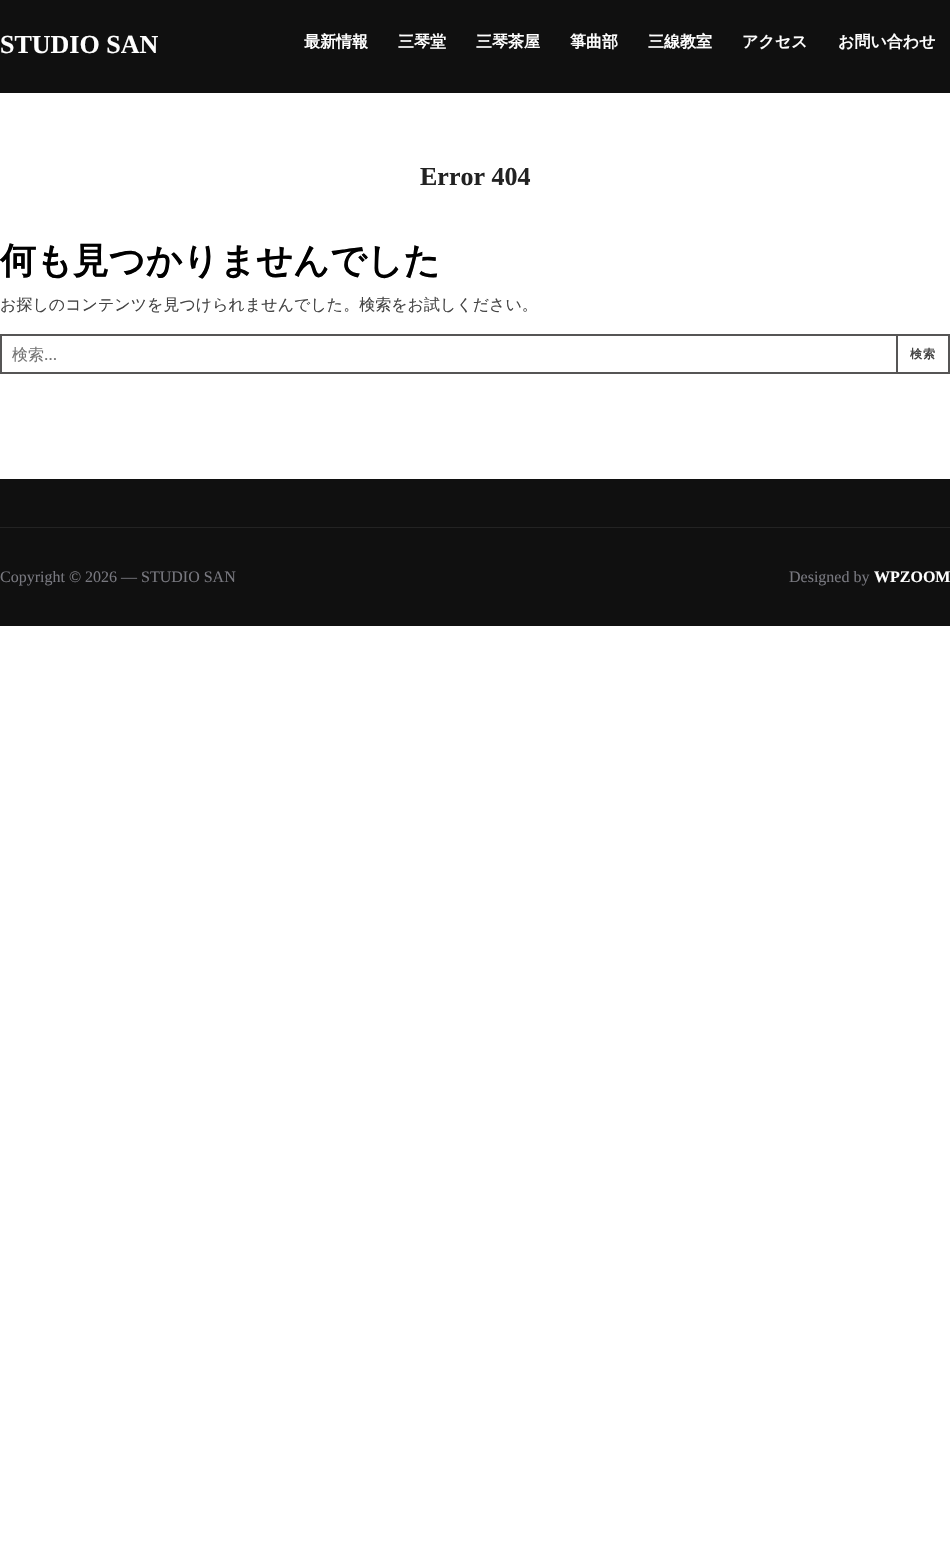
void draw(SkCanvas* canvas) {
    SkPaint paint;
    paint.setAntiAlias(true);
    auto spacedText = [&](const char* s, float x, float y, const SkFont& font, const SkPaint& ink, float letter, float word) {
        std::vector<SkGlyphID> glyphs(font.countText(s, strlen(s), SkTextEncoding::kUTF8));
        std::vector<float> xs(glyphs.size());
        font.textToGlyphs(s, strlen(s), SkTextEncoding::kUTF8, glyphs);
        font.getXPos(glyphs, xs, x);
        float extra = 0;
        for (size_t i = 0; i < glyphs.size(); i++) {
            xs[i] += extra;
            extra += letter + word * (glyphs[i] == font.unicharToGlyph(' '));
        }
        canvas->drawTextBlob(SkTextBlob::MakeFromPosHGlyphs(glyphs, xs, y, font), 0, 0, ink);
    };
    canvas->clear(0xFFFFFFFF);
    paint.setColor(0xFF101010);
    canvas->drawRect(SkRect::MakeXYWH(0, 0, 950, 93), paint);
    SkFont font1(fontMgr->matchFamilyStyle("Liberation Serif", SkFontStyle::Bold()), 26);
    font1.setSubpixel(true);
    paint.setColor(0xFFFFFFFF);
    canvas->drawString("STUDIO SAN", 0, 53, font1, paint);
    SkFont font2(fontMgr->matchFamilyStyle("WenQuanYi Zen Hei", SkFontStyle::Bold()), 16);
    font2.setSubpixel(true);
    canvas->drawString("最新情報", 304, 47, font2, paint);
    canvas->drawString("三琴堂", 398, 47, font2, paint);
    canvas->drawString("三琴茶屋", 476, 47, font2, paint);
    canvas->drawString("箏曲部", 570, 47, font2, paint);
    canvas->drawString("三線教室", 648, 47, font2, paint);
    canvas->drawString("アクセス", 742, 47, font2, paint);
    canvas->drawString("お問い合わせ", 838, 47, font2, paint);
    paint.setColor(0xFF222222);
    canvas->drawString("Error 404", 420, 185, font1, paint);
    SkFont font3(fontMgr->matchFamilyStyle("WenQuanYi Zen Hei", SkFontStyle::Bold()), 36);
    font3.setSubpixel(true);
    paint.setColor(0xFF000000);
    canvas->drawString("何も見つかりませんでした", 0, 273, font3, paint);
    SkFont font4(fontMgr->matchFamilyStyle("WenQuanYi Zen Hei", SkFontStyle(500, SkFontStyle::kNormal_Width, SkFontStyle::kUpright_Slant)), 16);
    font4.setSubpixel(true);
    paint.setColor(0xFF444444);
    canvas->drawString("お探しのコンテンツを見つけられませんでした。検索をお試しください。", 0, 310, font4, paint);
    paint.setStyle(SkPaint::kStroke_Style);
    paint.setStrokeWidth(2);
    paint.setColor(0xFF565555);
    canvas->drawRect(SkRect::MakeXYWH(1, 335, 948, 38), paint);
    paint.setStyle(SkPaint::kFill_Style);
    paint.setColor(0xFF757575);
    canvas->drawString("検索", 12, 360, font4, paint);
    SkFont font5(fontMgr->matchFamilyStyle("Inter", SkFontStyle::Normal()), 16);
    font5.setSubpixel(true);
    canvas->drawString("…", 44, 360, font5, paint);
    paint.setStyle(SkPaint::kStroke_Style);
    paint.setColor(0xFF565555);
    canvas->drawRect(SkRect::MakeXYWH(897, 335, 52, 38), paint);
    SkFont font6(fontMgr->matchFamilyStyle("WenQuanYi Zen Hei", SkFontStyle::Bold()), 12);
    font6.setSubpixel(true);
    paint.setStyle(SkPaint::kFill_Style);
    paint.setColor(0xFF444444);
    spacedText("検索", 910, 358, font6, paint, 1, 0);
    paint.setColor(0xFF101010);
    canvas->drawRect(SkRect::MakeXYWH(0, 479, 950, 147), paint);
    paint.setColor(0xFF232323);
    canvas->drawRect(SkRect::MakeXYWH(0, 527, 950, 1), paint);
    SkFont font7(fontMgr->matchFamilyStyle("Liberation Serif", SkFontStyle::Normal()), 16);
    font7.setSubpixel(true);
    paint.setColor(0xFF78787F);
    canvas->drawString("Copyright © 2026 — STUDIO SAN", 0, 582, font7, paint);
    canvas->drawString("Designed by", 789, 582, font7, paint);
    SkFont font8(fontMgr->matchFamilyStyle("Liberation Serif", SkFontStyle::Bold()), 16);
    font8.setSubpixel(true);
    paint.setColor(0xFFFFFFFF);
    canvas->drawString("WPZOOM", 874, 582, font8, paint);
}
